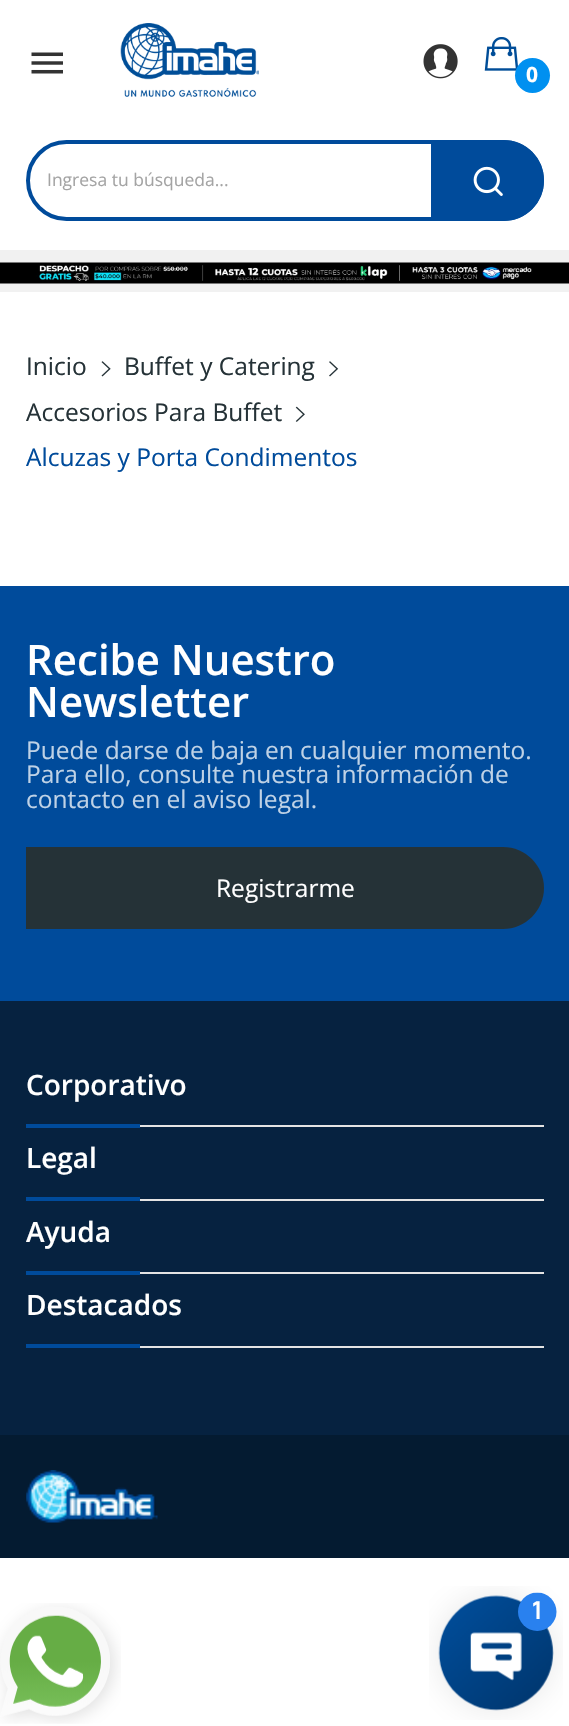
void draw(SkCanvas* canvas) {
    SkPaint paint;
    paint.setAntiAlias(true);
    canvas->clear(0xFFFFFFFF);
    paint.setColor(0xFFF1F1F1);
    canvas->drawRect(SkRect::MakeXYWH(0, 250, 569, 42), paint);
    canvas->drawImageRect(SkImages::DeferredFromEncodedData(SkData::MakeFromFileName("img1.png")), SkRect::MakeXYWH(31, 52, 32, 22), SkSamplingOptions());
    canvas->drawImageRect(SkImages::DeferredFromEncodedData(SkData::MakeFromFileName("img2.png")), SkRect::MakeXYWH(120, 23, 139, 74), SkSamplingOptions());
    canvas->drawImageRect(SkImages::DeferredFromEncodedData(SkData::MakeFromFileName("img3.png")), SkRect::MakeXYWH(423, 44, 35, 35), SkSamplingOptions());
    canvas->drawImageRect(SkImages::DeferredFromEncodedData(SkData::MakeFromFileName("img4.png")), SkRect::MakeXYWH(484, 37, 34, 34), SkSamplingOptions());
    paint.setColor(0xFF0090F0);
    canvas->drawCircle(532.5f, 75.5f, 17.5f, paint);
    SkFont font1(fontMgr->matchFamilyStyle("Open Sans", SkFontStyle::Bold()), 21);
    font1.setSubpixel(true);
    paint.setColor(0xFFFFFFFF);
    canvas->drawString("0", 526, 82, font1, paint);
    paint.setStyle(SkPaint::kStroke_Style);
    paint.setStrokeWidth(4);
    paint.setColor(0xFF004B9B);
    canvas->drawRoundRect(SkRect::MakeXYWH(28, 142, 514, 77), 38.5f, 38.5f, paint);
    SkFont font2(fontMgr->matchFamilyStyle("Open Sans", SkFontStyle::Normal()), 17.5f);
    font2.setSubpixel(true);
    paint.setStyle(SkPaint::kFill_Style);
    paint.setColor(0xFFA4A4A4);
    canvas->drawString("Ingresa tu búsqueda...", 47, 186, font2, paint);
    paint.setColor(0xFF004B9B);
    canvas->drawPath(SkPathBuilder().moveTo(431, 140).lineTo(503.5f, 140).cubicTo(526, 140, 544, 158, 544, 180.5f).cubicTo(544, 203, 526, 221, 503.5f, 221).lineTo(431, 221).close().detach(), paint);
    canvas->drawImageRect(SkImages::DeferredFromEncodedData(SkData::MakeFromFileName("img5.png")), SkRect::MakeXYWH(473, 166, 30, 30), SkSamplingOptions());
    canvas->drawImageRect(SkImages::DeferredFromEncodedData(SkData::MakeFromFileName("img6.png")), SkRect::MakeXYWH(0, 262, 569, 22), SkSamplingOptions());
    SkFont font3(fontMgr->matchFamilyStyle("Open Sans", SkFontStyle::Normal()), 24.5f);
    font3.setSubpixel(true);
    paint.setColor(0xFF253237);
    canvas->drawString("Inicio", 26, 375, font3, paint);
    canvas->drawImageRect(SkImages::DeferredFromEncodedData(SkData::MakeFromFileName("img7.png")), SkRect::MakeXYWH(101, 361, 10, 16), SkSamplingOptions());
    canvas->drawString("Buffet y Catering", 124, 375, font3, paint);
    canvas->drawImageRect(SkImages::DeferredFromEncodedData(SkData::MakeFromFileName("img8.png")), SkRect::MakeXYWH(329, 361, 10, 16), SkSamplingOptions());
    canvas->drawString("Accesorios Para Buffet", 26, 421, font3, paint);
    canvas->drawImageRect(SkImages::DeferredFromEncodedData(SkData::MakeFromFileName("img9.png")), SkRect::MakeXYWH(295, 406, 10, 16), SkSamplingOptions());
    paint.setColor(0xFF004B9B);
    canvas->drawString("Alcuzas y Porta Condimentos", 26, 466, font3, paint);
    canvas->drawRect(SkRect::MakeXYWH(0, 586, 569, 415), paint);
    SkFont font4(fontMgr->matchFamilyStyle("Open Sans", SkFontStyle(600, SkFontStyle::kNormal_Width, SkFontStyle::kUpright_Slant)), 42);
    font4.setSubpixel(true);
    paint.setColor(0xFFFFFFFF);
    canvas->drawString("Recibe Nuestro", 26, 675, font4, paint);
    canvas->drawString("Newsletter", 26, 717, font4, paint);
    paint.setColor(0xFFBFD2E6);
    canvas->drawString("Puede darse de baja en cualquier momento.", 26, 759, font3, paint);
    canvas->drawString("Para ello, consulte nuestra información de", 26, 783, font3, paint);
    canvas->drawString("contacto en el aviso legal.", 26, 808, font3, paint);
    paint.setColor(0xFF253237);
    canvas->drawPath(SkPathBuilder().moveTo(26, 847).lineTo(503, 847).cubicTo(525.5f, 847, 544, 865.5f, 544, 888).cubicTo(544, 910.5f, 525.5f, 929, 503, 929).lineTo(26, 929).close().detach(), paint);
    paint.setColor(0xFFFFFFFF);
    canvas->drawString("Registrarme", 216, 897, font3, paint);
    paint.setColor(0xFF062240);
    canvas->drawRect(SkRect::MakeXYWH(0, 1001, 569, 434), paint);
    paint.setColor(0xFFE3E3E3);
    canvas->drawRect(SkRect::MakeXYWH(140, 1125, 404, 2), paint);
    SkFont font5(fontMgr->matchFamilyStyle("Open Sans", SkFontStyle(600, SkFontStyle::kNormal_Width, SkFontStyle::kUpright_Slant)), 28);
    font5.setSubpixel(true);
    paint.setColor(0xFFFFFFFF);
    canvas->drawString("Corporativo", 26, 1095, font5, paint);
    paint.setColor(0xFF004B9B);
    canvas->drawRect(SkRect::MakeXYWH(26, 1124, 114, 4), paint);
    paint.setColor(0xFFE3E3E3);
    canvas->drawRect(SkRect::MakeXYWH(140, 1199, 404, 2), paint);
    paint.setColor(0xFFFFFFFF);
    canvas->drawString("Legal", 26, 1168, font5, paint);
    paint.setColor(0xFF004B9B);
    canvas->drawRect(SkRect::MakeXYWH(26, 1197, 114, 4), paint);
    paint.setColor(0xFFE3E3E3);
    canvas->drawRect(SkRect::MakeXYWH(140, 1272, 404, 2), paint);
    paint.setColor(0xFFFFFFFF);
    canvas->drawString("Ayuda", 26, 1242, font5, paint);
    paint.setColor(0xFF004B9B);
    canvas->drawRect(SkRect::MakeXYWH(26, 1271, 114, 4), paint);
    paint.setColor(0xFFE3E3E3);
    canvas->drawRect(SkRect::MakeXYWH(140, 1346, 404, 2), paint);
    paint.setColor(0xFFFFFFFF);
    canvas->drawString("Destacados", 26, 1315, font5, paint);
    paint.setColor(0xFF004B9B);
    canvas->drawRect(SkRect::MakeXYWH(26, 1344, 114, 4), paint);
    paint.setColor(0xFF041B31);
    canvas->drawRect(SkRect::MakeXYWH(0, 1435, 569, 123), paint);
    canvas->drawImageRect(SkImages::DeferredFromEncodedData(SkData::MakeFromFileName("img10.png")), SkRect::MakeXYWH(26, 1470, 132, 53), SkSamplingOptions());
    canvas->drawImageRect(SkImages::DeferredFromEncodedData(SkData::MakeFromFileName("img11.png")), SkRect::MakeXYWH(0, 1603, 121, 121), SkSamplingOptions());
    canvas->drawImageRect(SkImages::DeferredFromEncodedData(SkData::MakeFromFileName("img12.png")), SkRect::MakeXYWH(429, 1586, 134, 134), SkSamplingOptions());
}
